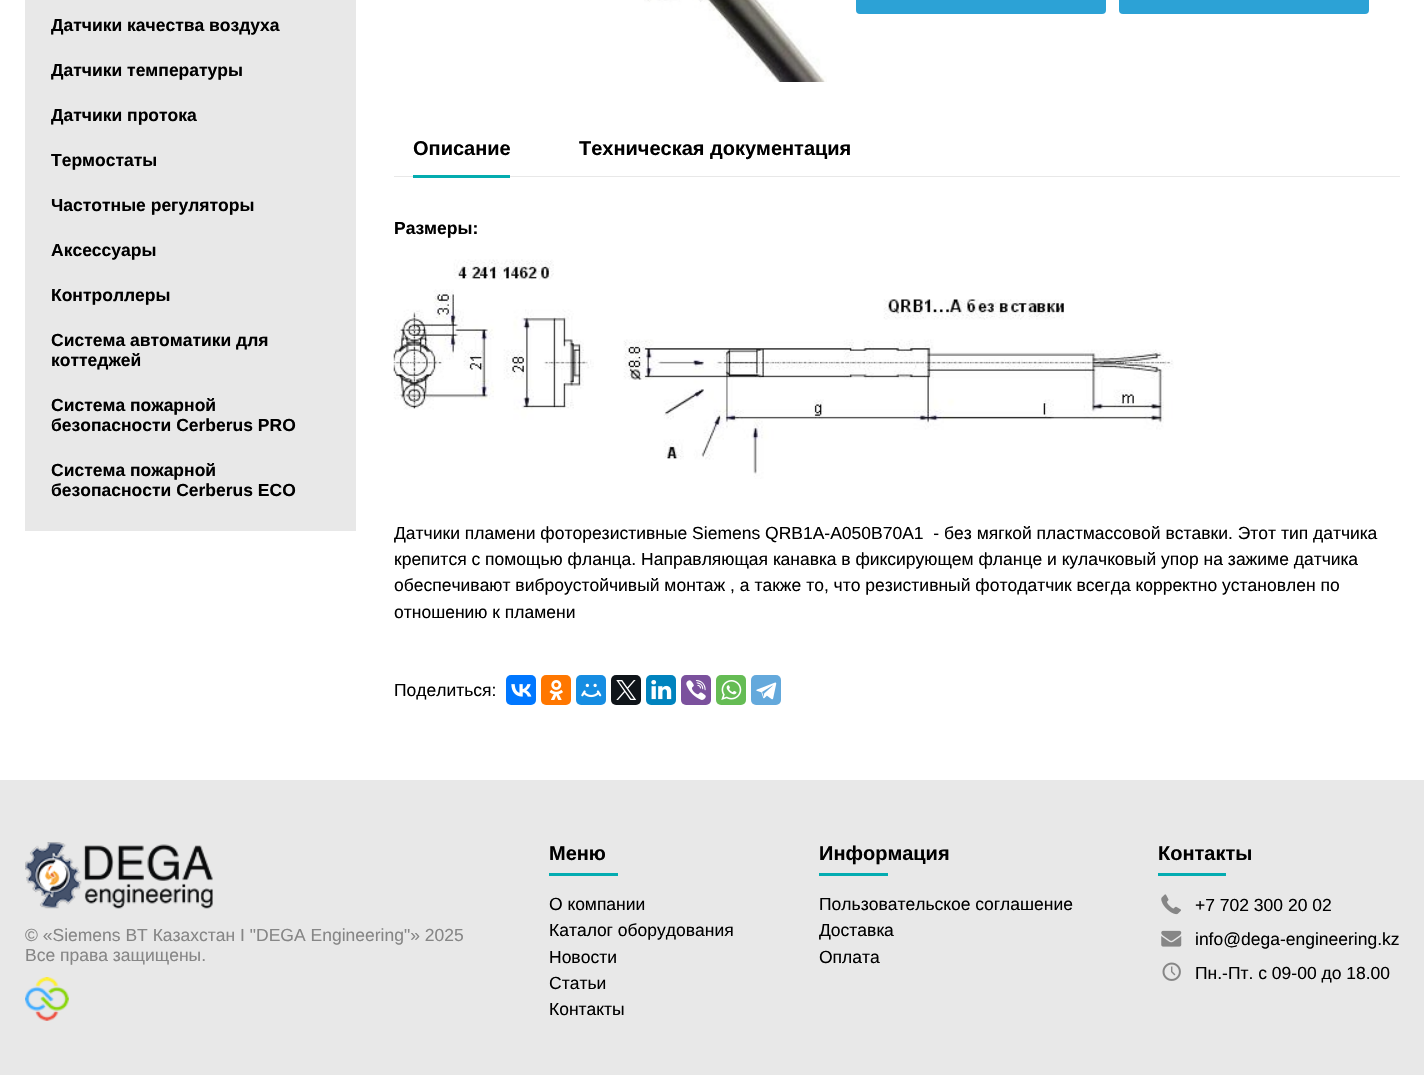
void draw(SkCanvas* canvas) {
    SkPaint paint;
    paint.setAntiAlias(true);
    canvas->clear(0xFFFFFFFF);
    paint.setColor(0xFFE8E8E8);
    canvas->drawRect(SkRect::MakeXYWH(25, 0, 331, 531), paint);
    SkFont font1(fontMgr->matchFamilyStyle("Liberation Sans", SkFontStyle::Bold()), 17.5f);
    font1.setSubpixel(true);
    paint.setColor(0xFF000000);
    canvas->drawString("Датчики качества воздуха", 51, 31, font1, paint);
    canvas->drawString("Датчики температуры", 51, 76, font1, paint);
    canvas->drawString("Датчики протока", 51, 121, font1, paint);
    canvas->drawString("Термостаты", 51, 166, font1, paint);
    canvas->drawString("Частотные регуляторы", 51, 211, font1, paint);
    canvas->drawString("Аксессуары", 51, 256, font1, paint);
    canvas->drawString("Контроллеры", 51, 301, font1, paint);
    canvas->drawString("Система автоматики для", 51, 346, font1, paint);
    canvas->drawString("коттеджей", 51, 366, font1, paint);
    canvas->drawString("Система пожарной", 51, 411, font1, paint);
    canvas->drawString("безопасности Cerberus PRO", 51, 431, font1, paint);
    canvas->drawString("Система пожарной", 51, 476, font1, paint);
    canvas->drawString("безопасности Cerberus ECO", 51, 496, font1, paint);
    canvas->drawImageRect(SkImages::DeferredFromEncodedData(SkData::MakeFromFileName("img1.png")), SkRect::MakeXYWH(644, 0, 183, 82), SkSamplingOptions());
    paint.setColor(0xFF2CA2D6);
    canvas->drawRoundRect(SkRect::MakeXYWH(856, -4, 250, 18), 4, 4, paint);
    canvas->drawRoundRect(SkRect::MakeXYWH(1119, -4, 250, 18), 4, 4, paint);
    paint.setColor(0xFFE8E8E8);
    canvas->drawRect(SkRect::MakeXYWH(394, 176, 1006, 1), paint);
    paint.setColor(0xFF03ACAF);
    canvas->drawRect(SkRect::MakeXYWH(413, 175, 97, 3), paint);
    SkFont font2(fontMgr->matchFamilyStyle("Liberation Sans", SkFontStyle::Bold()), 20);
    font2.setSubpixel(true);
    paint.setColor(0xFF000000);
    canvas->drawString("Описание", 413, 155, font2, paint);
    canvas->drawString("Техническая документация", 579, 155, font2, paint);
    canvas->drawString("Размеры:", 394, 234, font1, paint);
    canvas->drawImageRect(SkImages::DeferredFromEncodedData(SkData::MakeFromFileName("img2.png")), SkRect::MakeXYWH(393, 259, 781, 220), SkSamplingOptions());
    SkFont font3(fontMgr->matchFamilyStyle("Liberation Sans", SkFontStyle::Normal()), 17.5f);
    font3.setSubpixel(true);
    canvas->drawString("Датчики пламени фоторезистивные Siemens QRB1A-A050B70A1  - без мягкой пластмассовой вставки. Этот тип датчика", 394, 539, font3, paint);
    canvas->drawString("крепится с помощью фланца. Направляющая канавка в фиксирующем фланце и кулачковый упор на зажиме датчика", 394, 565, font3, paint);
    canvas->drawString("обеспечивают виброустойчивый монтаж , а также то, что резистивный фотодатчик всегда корректно установлен по", 394, 591, font3, paint);
    canvas->drawString("отношению к пламени", 394, 618, font3, paint);
    canvas->drawString("Поделиться:", 394, 696, font3, paint);
    paint.setColor(0xFF0077FF);
    canvas->drawRoundRect(SkRect::MakeXYWH(506, 675, 30, 30), 5, 5, paint);
    canvas->drawImageRect(SkImages::DeferredFromEncodedData(SkData::MakeFromFileName("img3.png")), SkRect::MakeXYWH(511, 684, 21, 13), SkSamplingOptions());
    paint.setColor(0xFFFF7700);
    canvas->drawRoundRect(SkRect::MakeXYWH(541, 675, 30, 30), 5, 5, paint);
    canvas->drawImageRect(SkImages::DeferredFromEncodedData(SkData::MakeFromFileName("img4.png")), SkRect::MakeXYWH(549, 680, 14, 20), SkSamplingOptions());
    paint.setColor(0xFF168DE2);
    canvas->drawRoundRect(SkRect::MakeXYWH(576, 675, 30, 30), 5, 5, paint);
    canvas->drawImageRect(SkImages::DeferredFromEncodedData(SkData::MakeFromFileName("img5.png")), SkRect::MakeXYWH(581, 683, 21, 15), SkSamplingOptions());
    paint.setColor(0xFF0F1419);
    canvas->drawRoundRect(SkRect::MakeXYWH(611, 675, 30, 30), 5, 5, paint);
    canvas->drawImageRect(SkImages::DeferredFromEncodedData(SkData::MakeFromFileName("img6.png")), SkRect::MakeXYWH(616, 680, 21, 20), SkSamplingOptions());
    paint.setColor(0xFF0083BE);
    canvas->drawRoundRect(SkRect::MakeXYWH(646, 675, 30, 30), 5, 5, paint);
    canvas->drawImageRect(SkImages::DeferredFromEncodedData(SkData::MakeFromFileName("img7.png")), SkRect::MakeXYWH(651, 680, 21, 20), SkSamplingOptions());
    paint.setColor(0xFF7B519D);
    canvas->drawRoundRect(SkRect::MakeXYWH(681, 675, 30, 30), 5, 5, paint);
    canvas->drawImageRect(SkImages::DeferredFromEncodedData(SkData::MakeFromFileName("img8.png")), SkRect::MakeXYWH(686, 680, 20, 20), SkSamplingOptions());
    paint.setColor(0xFF65BC54);
    canvas->drawRoundRect(SkRect::MakeXYWH(716, 675, 30, 30), 5, 5, paint);
    canvas->drawImageRect(SkImages::DeferredFromEncodedData(SkData::MakeFromFileName("img9.png")), SkRect::MakeXYWH(721, 680, 21, 20), SkSamplingOptions());
    paint.setColor(0xFF64A9DC);
    canvas->drawRoundRect(SkRect::MakeXYWH(751, 675, 30, 30), 5, 5, paint);
    canvas->drawImageRect(SkImages::DeferredFromEncodedData(SkData::MakeFromFileName("img10.png")), SkRect::MakeXYWH(756, 682, 21, 18), SkSamplingOptions());
    paint.setColor(0xFFE8E8E8);
    canvas->drawRect(SkRect::MakeXYWH(0, 780, 1424, 295), paint);
    canvas->drawImageRect(SkImages::DeferredFromEncodedData(SkData::MakeFromFileName("img11.png")), SkRect::MakeXYWH(25, 842, 188, 67), SkSamplingOptions());
    paint.setColor(0xFF868686);
    canvas->drawString("© «Siemens BT Казахстан I \"DEGA Engineering\"» 2025", 25, 941, font3, paint);
    canvas->drawString("Все права защищены.", 25, 961, font3, paint);
    canvas->drawImageRect(SkImages::DeferredFromEncodedData(SkData::MakeFromFileName("img12.png")), SkRect::MakeXYWH(25, 977, 44, 44), SkSamplingOptions());
    paint.setColor(0xFF000000);
    canvas->drawString("Меню", 549, 860, font2, paint);
    paint.setColor(0xFF03ACB1);
    canvas->drawRect(SkRect::MakeXYWH(549, 873, 69, 3), paint);
    paint.setColor(0xFF000000);
    canvas->drawString("О компании", 549, 910, font3, paint);
    canvas->drawString("Каталог оборудования", 549, 936, font3, paint);
    canvas->drawString("Новости", 549, 963, font3, paint);
    canvas->drawString("Статьи", 549, 989, font3, paint);
    canvas->drawString("Контакты", 549, 1015, font3, paint);
    canvas->drawString("Информация", 819, 860, font2, paint);
    paint.setColor(0xFF03ACB1);
    canvas->drawRect(SkRect::MakeXYWH(819, 873, 69, 3), paint);
    paint.setColor(0xFF000000);
    canvas->drawString("Пользовательское соглашение", 819, 910, font3, paint);
    canvas->drawString("Доставка", 819, 936, font3, paint);
    canvas->drawString("Оплата", 819, 963, font3, paint);
    canvas->drawString("Контакты", 1158, 860, font2, paint);
    paint.setColor(0xFF03ACB1);
    canvas->drawRect(SkRect::MakeXYWH(1158, 873, 68, 3), paint);
    canvas->drawImageRect(SkImages::DeferredFromEncodedData(SkData::MakeFromFileName("img13.png")), SkRect::MakeXYWH(1161, 894, 20, 21), SkSamplingOptions());
    paint.setColor(0xFF000000);
    canvas->drawString("+7 702 300 20 02", 1195, 911, font3, paint);
    canvas->drawImageRect(SkImages::DeferredFromEncodedData(SkData::MakeFromFileName("img14.png")), SkRect::MakeXYWH(1161, 930, 21, 17), SkSamplingOptions());
    canvas->drawString("info@dega-engineering.kz", 1195, 945, font3, paint);
    canvas->drawImageRect(SkImages::DeferredFromEncodedData(SkData::MakeFromFileName("img15.png")), SkRect::MakeXYWH(1162, 962, 19, 19), SkSamplingOptions());
    canvas->drawString("Пн.-Пт. с 09-00 до 18.00", 1195, 979, font3, paint);
}
